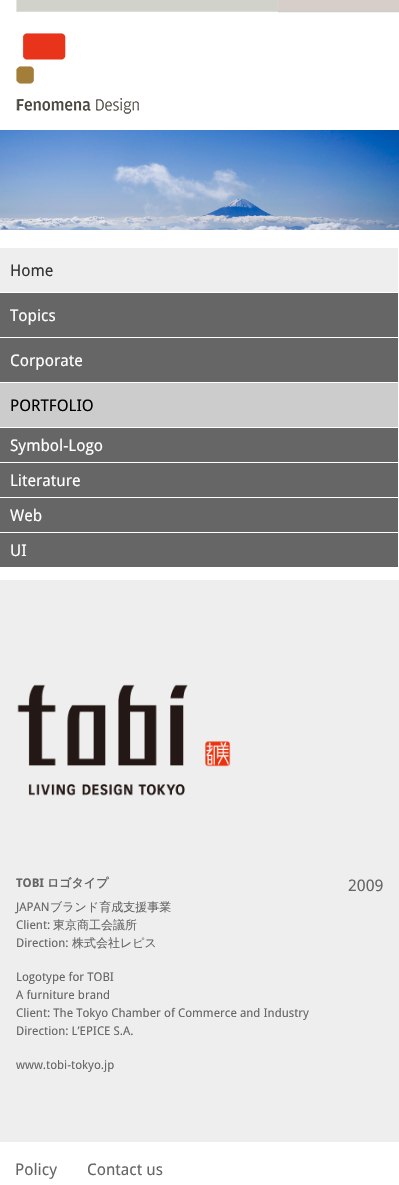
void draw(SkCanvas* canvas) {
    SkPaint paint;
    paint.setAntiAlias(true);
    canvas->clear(0xFFFFFFFF);
    canvas->drawImageRect(SkImages::DeferredFromEncodedData(SkData::MakeFromFileName("img1.png")), SkRect::MakeXYWH(278, 0, 121, 13), SkSamplingOptions());
    canvas->drawImageRect(SkImages::DeferredFromEncodedData(SkData::MakeFromFileName("img2.png")), SkRect::MakeXYWH(0, 0, 278, 114), SkSamplingOptions());
    canvas->drawImageRect(SkImages::DeferredFromEncodedData(SkData::MakeFromFileName("img3.png")), SkRect::MakeXYWH(0, 130, 399, 100), SkSamplingOptions());
    paint.setColor(0xFFEEEEEE);
    canvas->drawRect(SkRect::MakeXYWH(0, 248, 398, 44), paint);
    SkFont font1(fontMgr->matchFamilyStyle("Droid Sans", SkFontStyle::Normal()), 16);
    font1.setSubpixel(true);
    paint.setColor(0xFF333333);
    canvas->drawString("Home", 10, 276, font1, paint);
    paint.setColor(0xFF666666);
    canvas->drawRect(SkRect::MakeXYWH(0, 293, 398, 44), paint);
    paint.setColor(0xFFFFFFFF);
    canvas->drawString("Topics", 10, 321, font1, paint);
    paint.setColor(0xFF666666);
    canvas->drawRect(SkRect::MakeXYWH(0, 338, 398, 44), paint);
    paint.setColor(0xFFFFFFFF);
    canvas->drawString("Corporate", 10, 366, font1, paint);
    paint.setColor(0xFFCCCCCC);
    canvas->drawRect(SkRect::MakeXYWH(0, 383, 398, 44), paint);
    paint.setColor(0xFF000000);
    canvas->drawString("PORTFOLIO", 10, 411, font1, paint);
    paint.setColor(0xFF666666);
    canvas->drawRect(SkRect::MakeXYWH(0, 428, 398, 34), paint);
    paint.setColor(0xFFFFFFFF);
    canvas->drawString("Symbol-Logo", 10, 451, font1, paint);
    paint.setColor(0xFF666666);
    canvas->drawRect(SkRect::MakeXYWH(0, 463, 398, 34), paint);
    paint.setColor(0xFFFFFFFF);
    canvas->drawString("Literature", 10, 486, font1, paint);
    paint.setColor(0xFF666666);
    canvas->drawRect(SkRect::MakeXYWH(0, 498, 398, 34), paint);
    paint.setColor(0xFFFFFFFF);
    canvas->drawString("Web", 10, 521, font1, paint);
    paint.setColor(0xFF666666);
    canvas->drawRect(SkRect::MakeXYWH(0, 533, 398, 34), paint);
    paint.setColor(0xFFFFFFFF);
    canvas->drawString("UI", 10, 556, font1, paint);
    paint.setColor(0xFFEEEEEE);
    canvas->drawRect(SkRect::MakeXYWH(0, 580, 399, 562), paint);
    canvas->drawImageRect(SkImages::DeferredFromEncodedData(SkData::MakeFromFileName("img4.png")), SkRect::MakeXYWH(17, 684, 214, 112), SkSamplingOptions());
    SkFont font2(fontMgr->matchFamilyStyle("Droid Sans", SkFontStyle::Bold()), 12);
    font2.setSubpixel(true);
    paint.setColor(0xFF666666);
    canvas->drawString("TOBI", 16, 887, font2, paint);
    SkFont font3(fontMgr->matchFamilyStyle("WenQuanYi Zen Hei", SkFontStyle::Bold()), 12);
    font3.setSubpixel(true);
    canvas->drawString("ロゴタイプ", 47, 887, font3, paint);
    SkFont font4(fontMgr->matchFamilyStyle("Droid Sans", SkFontStyle::Normal()), 12);
    font4.setSubpixel(true);
    canvas->drawString("JAPAN", 16, 911, font4, paint);
    SkFont font5(fontMgr->matchFamilyStyle("WenQuanYi Zen Hei", SkFontStyle(500, SkFontStyle::kNormal_Width, SkFontStyle::kUpright_Slant)), 12);
    font5.setSubpixel(true);
    canvas->drawString("ブランド育成支援事業", 50, 911, font5, paint);
    canvas->drawString("Client:", 16, 929, font4, paint);
    canvas->drawString("東京商工会議所", 53, 929, font5, paint);
    canvas->drawString("Direction:", 16, 947, font4, paint);
    canvas->drawString("株式会社レピス", 72, 947, font5, paint);
    canvas->drawString("Logotype for TOBI", 16, 981, font4, paint);
    canvas->drawString("A furniture brand", 16, 999, font4, paint);
    canvas->drawString("Client: The Tokyo Chamber of Commerce and Industry", 16, 1017, font4, paint);
    canvas->drawString("Direction: L’EPICE S.A.", 16, 1035, font4, paint);
    canvas->drawString("www.tobi-tokyo.jp", 16, 1069, font4, paint);
    canvas->drawString("2009", 348, 891, font1, paint);
    canvas->drawString("Policy", 15, 1175, font1, paint);
    canvas->drawString("Contact us", 87, 1175, font1, paint);
}
